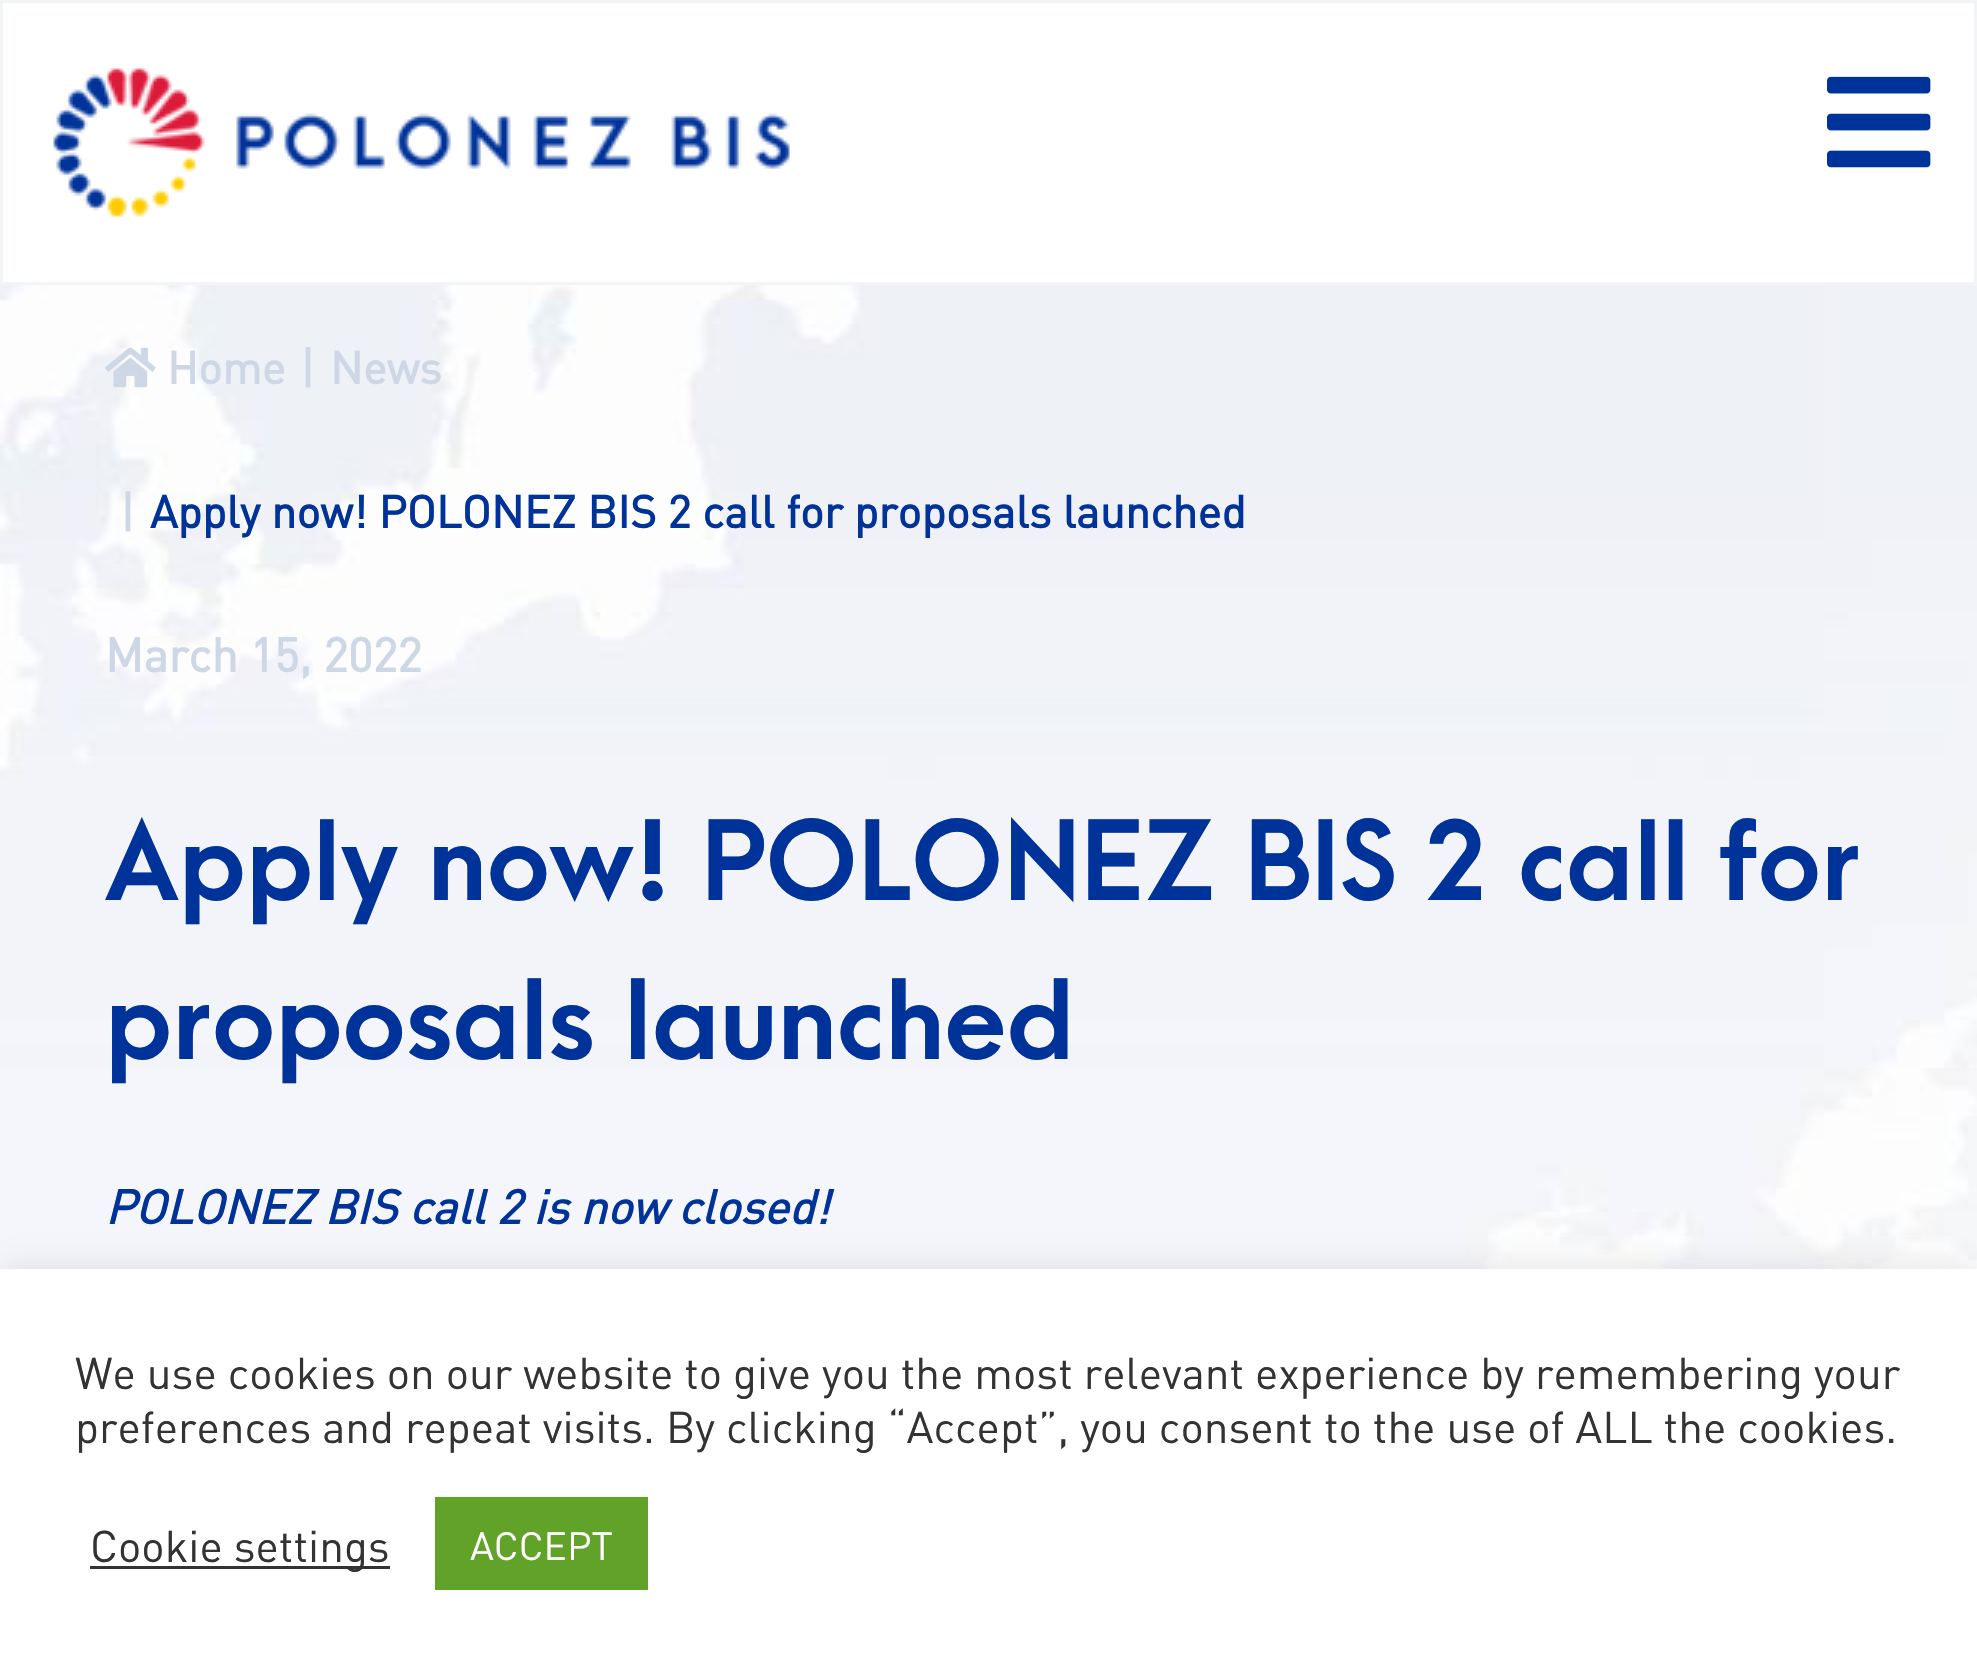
void draw(SkCanvas* canvas) {
    SkPaint paint;
    paint.setAntiAlias(true);
    canvas->clear(0xFFFFFFFF);
    canvas->drawImageRect(SkImages::DeferredFromEncodedData(SkData::MakeFromFileName("img1.png")), SkRect::MakeXYWH(0, 285, 1977, 984), SkSamplingOptions());
    paint.setStyle(SkPaint::kStroke_Style);
    paint.setStrokeWidth(3);
    paint.setColor(0xFFF1F5F6);
    canvas->drawRect(SkRect::MakeXYWH(1.5f, 1.5f, 1974, 282), paint);
    canvas->drawImageRect(SkImages::DeferredFromEncodedData(SkData::MakeFromFileName("img2.png")), SkRect::MakeXYWH(53, 68, 737, 149), SkSamplingOptions());
    canvas->drawImageRect(SkImages::DeferredFromEncodedData(SkData::MakeFromFileName("img3.png")), SkRect::MakeXYWH(1827, 76, 104, 92), SkSamplingOptions());
    canvas->drawImageRect(SkImages::DeferredFromEncodedData(SkData::MakeFromFileName("img4.png")), SkRect::MakeXYWH(105, 347, 51, 41), SkSamplingOptions());
    SkFont font1(fontMgr->matchFamilyStyle("DIN", SkFontStyle::Bold()), 45);
    font1.setSubpixel(true);
    paint.setStyle(SkPaint::kFill_Style);
    paint.setColor(0xFFCDD7E6);
    canvas->drawString("Home", 167, 384, font1, paint);
    canvas->drawString("|", 300, 384, font1, paint);
    canvas->drawString("News", 330, 384, font1, paint);
    canvas->drawString("|", 120, 528, font1, paint);
    paint.setColor(0xFF003399);
    canvas->drawString("Apply now! POLONEZ BIS 2 call for proposals launched", 150, 528, font1, paint);
    SkFont font2(fontMgr->matchFamilyStyle("DIN", SkFontStyle::Bold()), 47.25f);
    font2.setSubpixel(true);
    paint.setColor(0xFFCDD7E6);
    canvas->drawString("March 15, 2022", 105, 672, font2, paint);
    SkFont font3(fontMgr->matchFamilyStyle("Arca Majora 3", SkFontStyle::Bold()), 105);
    font3.setSubpixel(true);
    paint.setColor(0xFF003399);
    canvas->drawString("Apply now! POLONEZ BIS 2 call for", 105, 900, font3, paint);
    canvas->drawString("proposals launched", 105, 1059, font3, paint);
    SkFont font4(fontMgr->matchFamilyStyle("DIN", SkFontStyle::BoldItalic()), 47.25f);
    font4.setSubpixel(true);
    canvas->drawString("POLONEZ BIS call 2 is now closed!", 105, 1224, font4, paint);
    paint.setColor(0x4DACABAB);
    paint.setMaskFilter(SkMaskFilter::MakeBlur(kNormal_SkBlurStyle, 15));
    canvas->drawRect(SkRect::MakeXYWH(0, 1266, 1977, 411), paint);
    paint.setMaskFilter(nullptr);
    paint.setColor(0xFFFFFFFF);
    canvas->drawRect(SkRect::MakeXYWH(0, 1269, 1977, 409), paint);
    SkFont font5(fontMgr->matchFamilyStyle("DIN", SkFontStyle::Normal()), 44);
    font5.setSubpixel(true);
    paint.setColor(0xFF333333);
    canvas->drawString("We use cookies on our website to give you the most relevant experience by remembering your", 75, 1389, font5, paint);
    canvas->drawString("preferences and repeat visits. By clicking “Accept”, you consent to the use of ALL the cookies.", 75, 1443, font5, paint);
    canvas->drawRect(SkRect::MakeXYWH(90, 1566, 300, 3), paint);
    canvas->drawString("Cookie settings", 90, 1562, font5, paint);
    paint.setColor(0xFF61A229);
    canvas->drawRect(SkRect::MakeXYWH(435, 1497, 213, 93), paint);
    SkFont font6(fontMgr->matchFamilyStyle("DIN", SkFontStyle::Normal()), 39);
    font6.setSubpixel(true);
    paint.setColor(0xFFFFFFFF);
    canvas->drawString("ACCEPT", 470, 1560, font6, paint);
}
